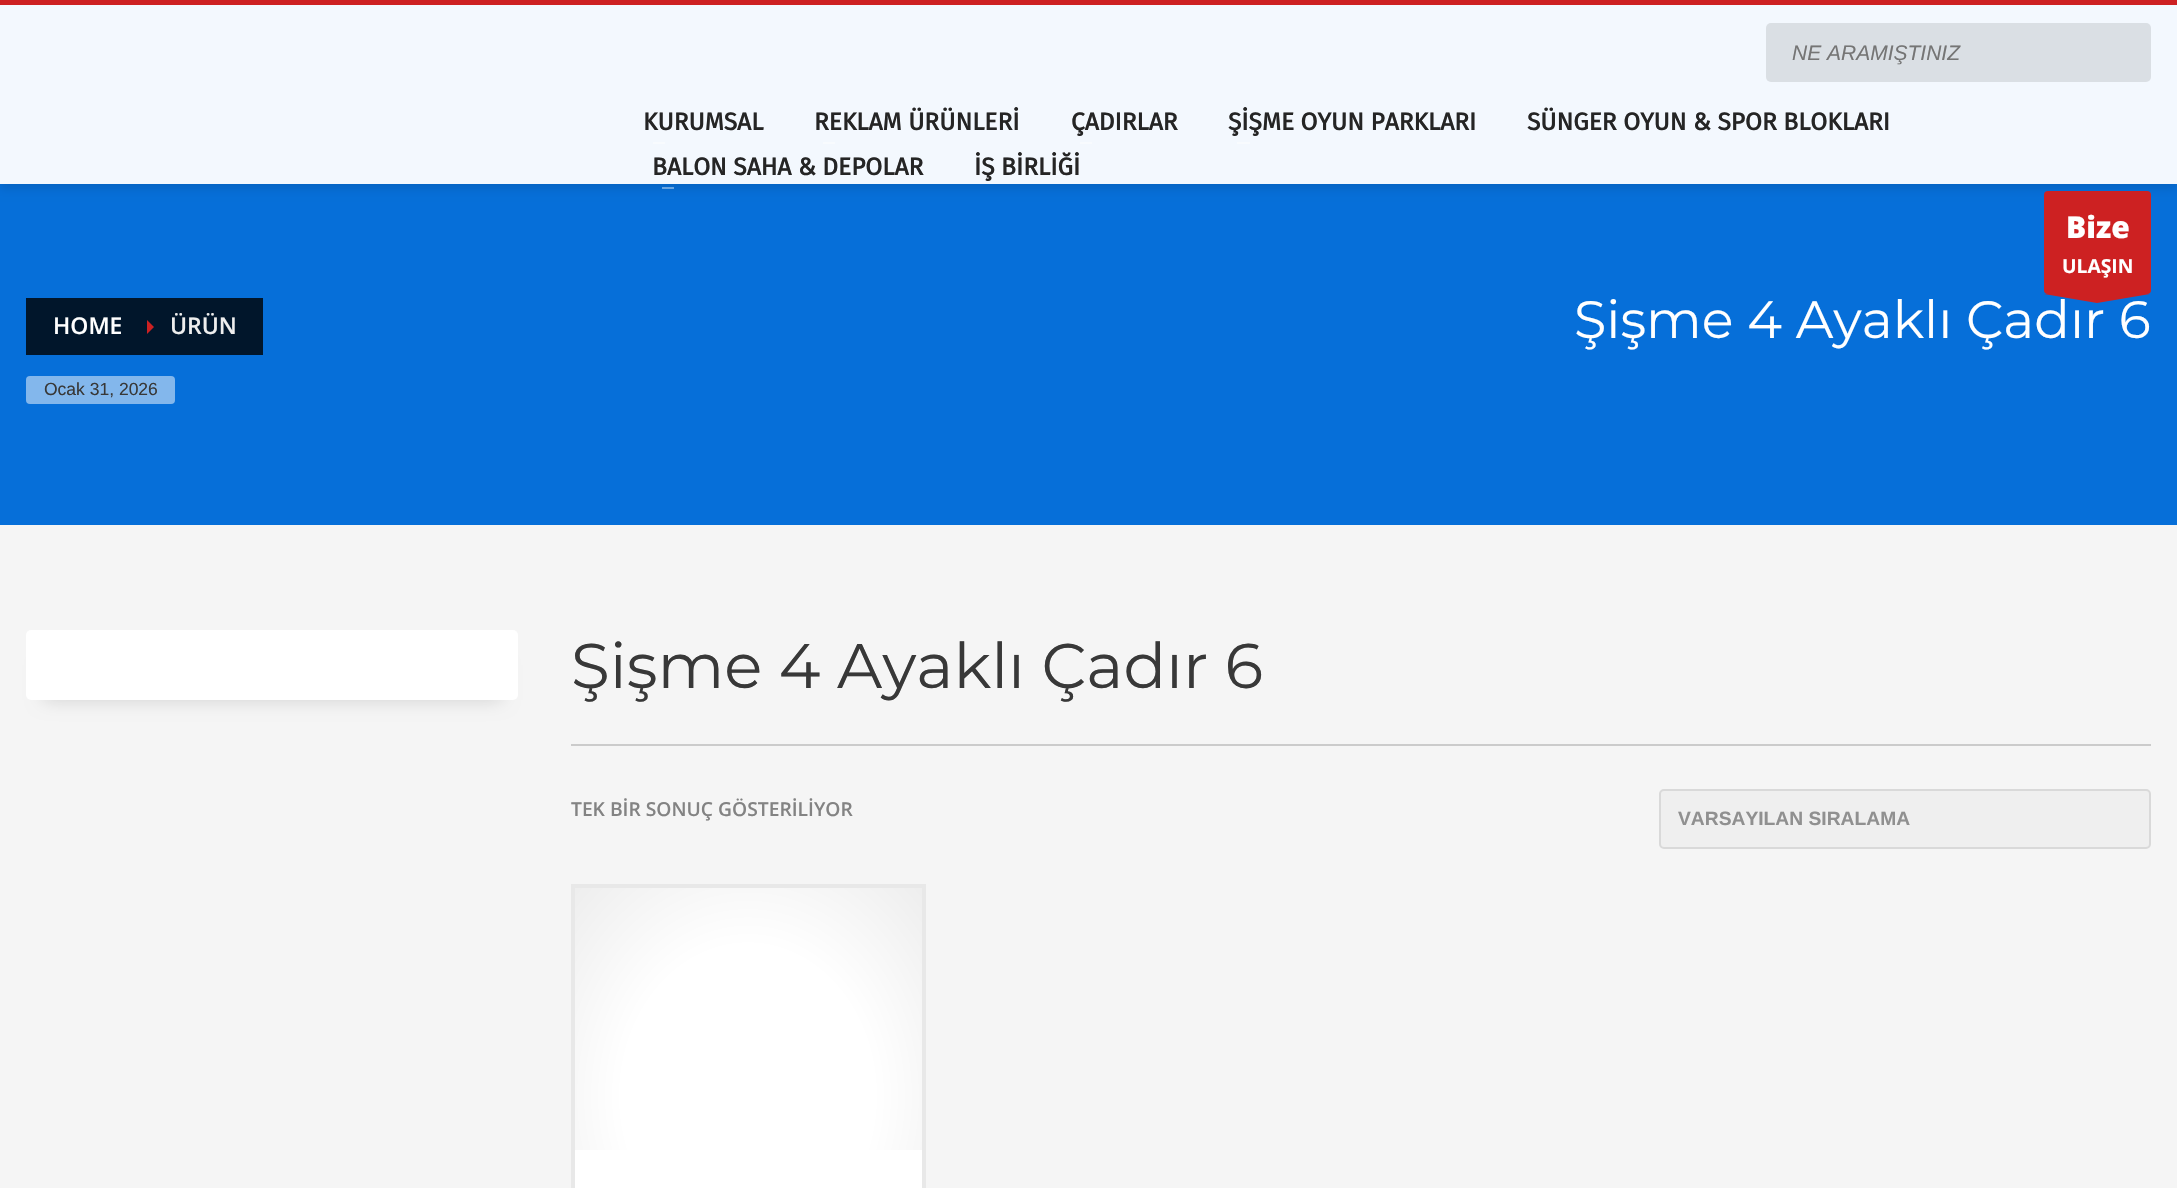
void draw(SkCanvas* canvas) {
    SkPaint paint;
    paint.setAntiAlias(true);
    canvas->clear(0xFFF5F5F5);
    paint.setColor(0xFF066FD9);
    canvas->drawRect(SkRect::MakeXYWH(0, 5, 2177, 520), paint);
    canvas->save();
    canvas->clipPath(SkPathBuilder(SkPathFillType::kEvenOdd).moveTo(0, 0).lineTo(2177, 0).lineTo(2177, 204).lineTo(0, 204).close().moveTo(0, 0).lineTo(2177, 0).lineTo(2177, 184).lineTo(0, 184).close().detach(), true);
    paint.setColor(0x1A000000);
    paint.setMaskFilter(SkMaskFilter::MakeBlur(kNormal_SkBlurStyle, 4.5f));
    canvas->drawRect(SkRect::MakeXYWH(0, 5, 2177, 184), paint);
    paint.setMaskFilter(nullptr);
    canvas->restore();
    paint.setColor(0xF2FFFFFF);
    canvas->drawRect(SkRect::MakeXYWH(0, 5, 2177, 179), paint);
    paint.setColor(0xFFCD2122);
    canvas->drawRect(SkRect::MakeXYWH(0, 0, 2177, 5), paint);
    paint.setColor(0xFFDADFE4);
    canvas->drawRoundRect(SkRect::MakeXYWH(1766, 23, 385, 59), 5, 5, paint);
    SkFont font1(fontMgr->matchFamilyStyle("Liberation Sans", SkFontStyle::Italic()), 21);
    font1.setSubpixel(true);
    paint.setColor(0xFF757575);
    canvas->drawString("NE ARAMIŞTINIZ", 1792, 60, font1, paint);
    SkFont font2(fontMgr->matchFamilyStyle("Fira Sans", SkFontStyle::Bold()), 24.5f);
    font2.setSubpixel(true);
    paint.setColor(0xFF252525);
    canvas->drawString("KURUMSAL", 643, 130, font2, paint);
    paint.setColor(0xFFF8FBFE);
    canvas->drawRect(SkRect::MakeXYWH(653, 142, 12, 2), paint);
    paint.setColor(0xFF252525);
    canvas->drawString("REKLAM ÜRÜNLERİ", 814, 130, font2, paint);
    paint.setColor(0xFFF8FBFE);
    canvas->drawRect(SkRect::MakeXYWH(823, 142, 12, 2), paint);
    paint.setColor(0xFF252525);
    canvas->drawString("ÇADIRLAR", 1071, 130, font2, paint);
    paint.setColor(0xFFF8FBFE);
    canvas->drawRect(SkRect::MakeXYWH(1080, 142, 12, 2), paint);
    paint.setColor(0xFF252525);
    canvas->drawString("ŞİŞME OYUN PARKLARI", 1228, 130, font2, paint);
    paint.setColor(0xFFF8FBFE);
    canvas->drawRect(SkRect::MakeXYWH(1237, 142, 13, 2), paint);
    paint.setColor(0xFF252525);
    canvas->drawString("SÜNGER OYUN & SPOR BLOKLARI", 1527, 130, font2, paint);
    canvas->drawString("BALON SAHA & DEPOLAR", 652, 175, font2, paint);
    paint.setColor(0xFF69A5E1);
    canvas->drawRect(SkRect::MakeXYWH(662, 187, 12, 2), paint);
    paint.setColor(0xFF252525);
    canvas->drawString("İŞ BİRLİĞİ", 974, 175, font2, paint);
    paint.setColor(0xFFCD2122);
    canvas->drawRoundRect(SkRect::MakeXYWH(2044, 191, 107, 103), 4, 4, paint);
    SkFont font3(fontMgr->matchFamilyStyle("Open Sans", SkFontStyle(800, SkFontStyle::kNormal_Width, SkFontStyle::kUpright_Slant)), 30);
    font3.setSubpixel(true);
    paint.setColor(0xFFFFFFFF);
    canvas->drawString("Bize", 2066, 238, font3, paint);
    SkFont font4(fontMgr->matchFamilyStyle("Open Sans", SkFontStyle::Bold()), 19.25f);
    font4.setSubpixel(true);
    canvas->drawString("ULAŞIN", 2062, 273, font4, paint);
    SkFont font5(fontMgr->matchFamilyStyle("Montserrat", SkFontStyle::Normal()), 52.5f);
    font5.setSubpixel(true);
    canvas->drawString("Şişme 4 Ayaklı Çadır 6", 1574, 338, font5, paint);
    paint.setColor(0xFFCD2122);
    canvas->drawPath(SkPathBuilder(SkPathFillType::kEvenOdd).moveTo(2150, 294).lineTo(2097, 303).lineTo(2044, 294).close().detach(), paint);
    paint.setColor(0xFF01162B);
    canvas->drawRect(SkRect::MakeXYWH(26, 298, 237, 57), paint);
    SkFont font6(fontMgr->matchFamilyStyle("Open Sans", SkFontStyle(600, SkFontStyle::kNormal_Width, SkFontStyle::kUpright_Slant)), 23);
    font6.setSubpixel(true);
    paint.setColor(0xFFFFFFFF);
    canvas->drawString("HOME", 53, 334, font6, paint);
    paint.setColor(0xFFCD2122);
    canvas->drawPath(SkPathBuilder().moveTo(147, 334).lineTo(147, 320).lineTo(154, 327).close().detach(), paint);
    paint.setColor(0xFFEEEEEE);
    canvas->drawString("ÜRÜN", 170, 334, font6, paint);
    paint.setColor(0xFF83B7EC);
    canvas->drawRoundRect(SkRect::MakeXYWH(26, 376, 149, 28), 4, 4, paint);
    SkFont font7(fontMgr->matchFamilyStyle("Liberation Sans", SkFontStyle::Normal()), 17.5f);
    font7.setSubpixel(true);
    paint.setColor(0xFF383838);
    canvas->drawString("Ocak 31, 2026", 44, 395, font7, paint);
    paint.setColor(0x26000000);
    paint.setMaskFilter(SkMaskFilter::MakeBlur(kNormal_SkBlurStyle, 9));
    canvas->drawRect(SkRect::MakeXYWH(44, 665, 457, 35), paint);
    paint.setMaskFilter(nullptr);
    paint.setColor(0xFFFFFFFF);
    canvas->drawRoundRect(SkRect::MakeXYWH(26, 630, 492, 70), 5, 5, paint);
    paint.setColor(0xFFCBCBCB);
    canvas->drawRect(SkRect::MakeXYWH(571, 744, 1580, 2), paint);
    SkFont font8(fontMgr->matchFamilyStyle("Montserrat", SkFontStyle::Normal()), 63);
    font8.setSubpixel(true);
    paint.setColor(0xFF383838);
    canvas->drawString("Şişme 4 Ayaklı Çadır 6", 571, 688, font8, paint);
    SkFont font9(fontMgr->matchFamilyStyle("Open Sans", SkFontStyle(600, SkFontStyle::kNormal_Width, SkFontStyle::kUpright_Slant)), 19.25f);
    font9.setSubpixel(true);
    paint.setColor(0xFF838383);
    canvas->drawString("TEK BİR SONUÇ GÖSTERİLİYOR", 571, 816, font9, paint);
    paint.setColor(0xFFEFEFEF);
    canvas->drawRoundRect(SkRect::MakeXYWH(1660, 790, 490, 58), 4, 4, paint);
    paint.setStyle(SkPaint::kStroke_Style);
    paint.setStrokeWidth(2);
    paint.setColor(0xFFD9D9D9);
    canvas->drawRoundRect(SkRect::MakeXYWH(1660, 790, 490, 58), 4, 4, paint);
    SkFont font10(fontMgr->matchFamilyStyle("Liberation Sans", SkFontStyle::Bold()), 19.25f);
    font10.setSubpixel(true);
    paint.setStyle(SkPaint::kFill_Style);
    paint.setColor(0xFF909090);
    canvas->drawString("VARSAYILAN SIRALAMA", 1678, 825, font10, paint);
    {
        const SkColor colors[] = {0xFFFFFFFF, 0xFFFFFFFF, 0xFFEDEDED};
        const float stops[] = {0, 0.5f, 1};
        SkMatrix m = SkMatrix::Translate(748, 1096).preScale(251, 299);
        paint.setShader(SkGradientShader::MakeRadial({0, 0}, 1, colors, stops, 3, SkTileMode::kClamp, 0, &m));
        paint.setAlpha(255);
    }
    canvas->drawRect(SkRect::MakeXYWH(575, 888, 347, 262), paint);
    paint.setShader(nullptr);
    paint.setColor(0xFFFFFFFF);
    canvas->drawRect(SkRect::MakeXYWH(575, 1150, 347, 38), paint);
    paint.setStyle(SkPaint::kStroke_Style);
    paint.setStrokeWidth(4);
    paint.setColor(0xFFE8E8E8);
    canvas->drawRect(SkRect::MakeXYWH(573, 886, 351, 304), paint);
}
